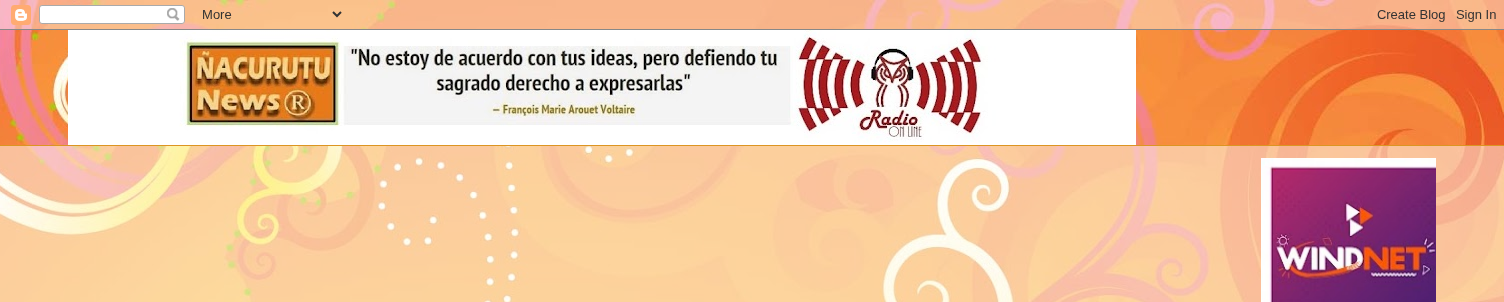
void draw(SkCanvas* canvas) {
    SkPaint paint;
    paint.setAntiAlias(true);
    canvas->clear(0xFFFFFFFF);
    canvas->drawImageRect(SkImages::DeferredFromEncodedData(SkData::MakeFromFileName("img1.png")), SkRect::MakeXYWH(0, 0, 1504, 302), SkSamplingOptions());
    canvas->drawImageRect(SkImages::DeferredFromEncodedData(SkData::MakeFromFileName("img2.png")), SkRect::MakeXYWH(0, 0, 1504, 30), SkSamplingOptions());
    canvas->drawImageRect(SkImages::DeferredFromEncodedData(SkData::MakeFromFileName("img3.png")), SkRect::MakeXYWH(68, 30, 1068, 115), SkSamplingOptions());
    paint.setColor(0x7DFFFFFF);
    canvas->drawRect(SkRect::MakeXYWH(0, 146, 1504, 156), paint);
    paint.setColor(0xFFDC9522);
    canvas->drawRect(SkRect::MakeXYWH(0, 145, 1504, 1), paint);
    canvas->drawImageRect(SkImages::DeferredFromEncodedData(SkData::MakeFromFileName("img4.png")), SkRect::MakeXYWH(1261, 158, 175, 144), SkSamplingOptions());
}
